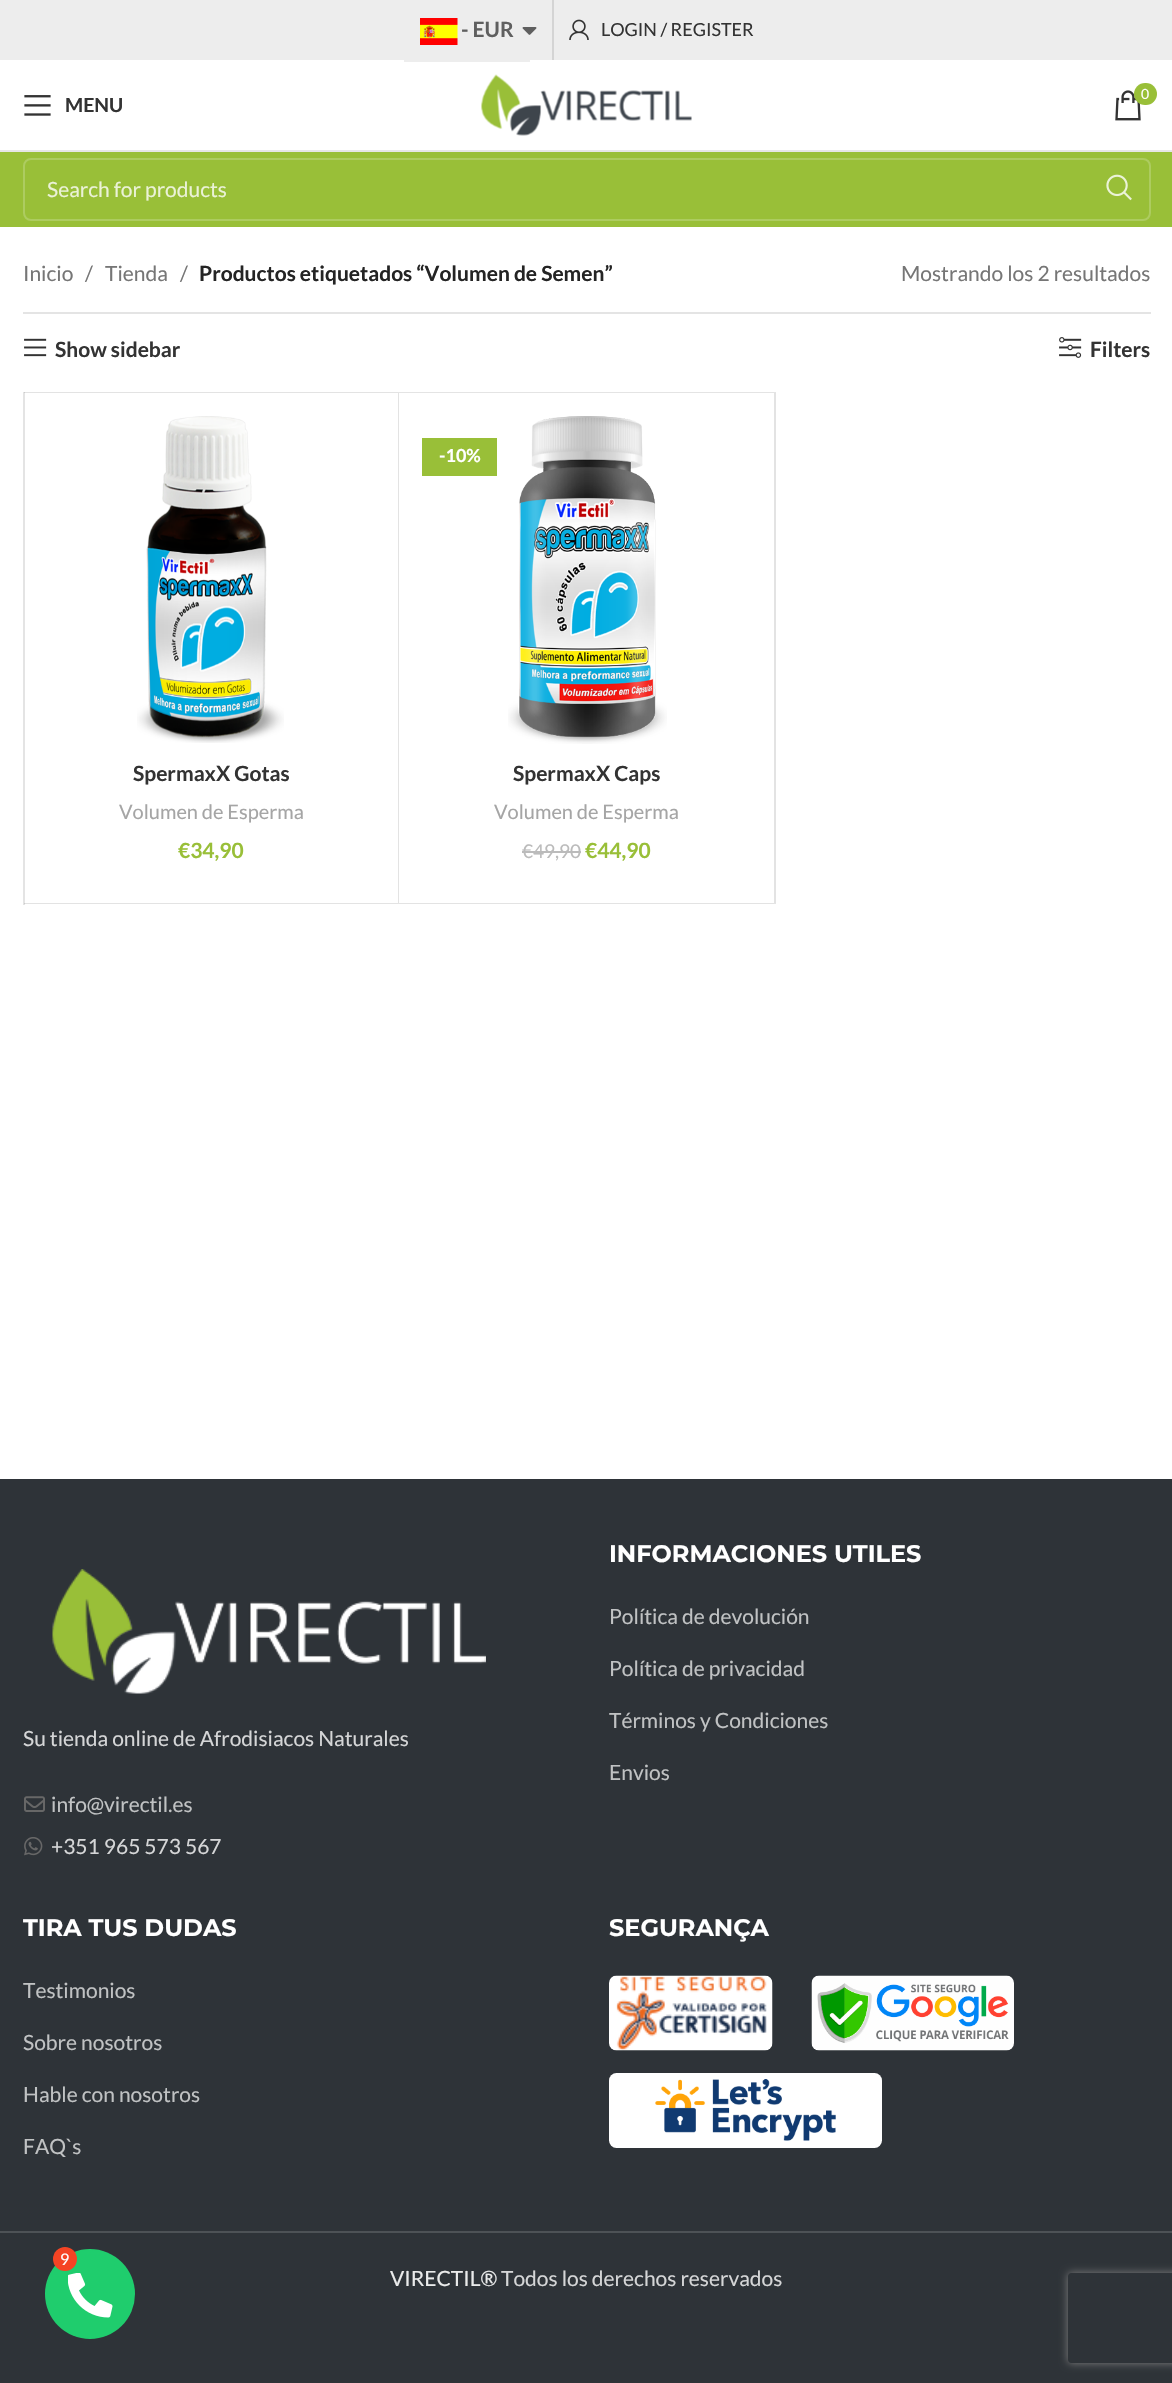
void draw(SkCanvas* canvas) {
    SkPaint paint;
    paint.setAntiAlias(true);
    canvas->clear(0xFFFFFFFF);
    paint.setColor(0xFFEDEDED);
    canvas->drawRect(SkRect::MakeXYWH(0, 0, 1172, 60), paint);
    canvas->drawImageRect(SkImages::DeferredFromEncodedData(SkData::MakeFromFileName("img1.png")), SkRect::MakeXYWH(420, 18, 38, 27), SkSamplingOptions());
    SkFont font1(fontMgr->matchFamilyStyle("Lato", SkFontStyle::Bold()), 21);
    font1.setSubpixel(true);
    paint.setColor(0xFF5F5F5F);
    canvas->drawString("- EUR", 461, 37, font1, paint);
    canvas->drawImageRect(SkImages::DeferredFromEncodedData(SkData::MakeFromFileName("img2.png")), SkRect::MakeXYWH(522, 27, 15, 8), SkSamplingOptions());
    paint.setColor(0xFFEDEDED);
    canvas->drawRect(SkRect::MakeXYWH(404, 60, 126, 2), paint);
    paint.setColor(0xFFD4D4D4);
    canvas->drawRect(SkRect::MakeXYWH(552, 0, 2, 60), paint);
    canvas->drawImageRect(SkImages::DeferredFromEncodedData(SkData::MakeFromFileName("img3.png")), SkRect::MakeXYWH(569, 19, 20, 21), SkSamplingOptions());
    SkFont font2(fontMgr->matchFamilyStyle("Lato", SkFontStyle::Normal()), 18);
    font2.setSubpixel(true);
    paint.setColor(0xFF333333);
    canvas->drawString("LOGIN / REGISTER", 601, 36, font2, paint);
    paint.setColor(0xFFE6E6E6);
    canvas->drawRect(SkRect::MakeXYWH(0, 150, 1172, 2), paint);
    canvas->drawImageRect(SkImages::DeferredFromEncodedData(SkData::MakeFromFileName("img4.png")), SkRect::MakeXYWH(481, 74, 211, 62), SkSamplingOptions());
    canvas->drawImageRect(SkImages::DeferredFromEncodedData(SkData::MakeFromFileName("img5.png")), SkRect::MakeXYWH(1115, 90, 26, 31), SkSamplingOptions());
    paint.setColor(0xFF99BF38);
    canvas->drawRoundRect(SkRect::MakeXYWH(1134, 83, 23, 22), 11, 11, paint);
    SkFont font3(fontMgr->matchFamilyStyle("Lato", SkFontStyle::Normal()), 14);
    font3.setSubpixel(true);
    paint.setColor(0xFFFFFFFF);
    canvas->drawString("0", 1141, 99, font3, paint);
    canvas->drawImageRect(SkImages::DeferredFromEncodedData(SkData::MakeFromFileName("img6.png")), SkRect::MakeXYWH(24, 95, 27, 21), SkSamplingOptions());
    SkFont font4(fontMgr->matchFamilyStyle("Lato", SkFontStyle::Bold()), 19.5f);
    font4.setSubpixel(true);
    paint.setColor(0xFF333333);
    canvas->drawString("MENU", 65, 112, font4, paint);
    paint.setColor(0xFF99BF38);
    canvas->drawRect(SkRect::MakeXYWH(0, 152, 1172, 75), paint);
    paint.setStyle(SkPaint::kStroke_Style);
    paint.setStrokeWidth(2);
    paint.setColor(0xFFADCC60);
    canvas->drawRoundRect(SkRect::MakeXYWH(24, 159, 1126, 61), 7, 7, paint);
    SkFont font5(fontMgr->matchFamilyStyle("Lato", SkFontStyle::Normal()), 21);
    font5.setSubpixel(true);
    paint.setStyle(SkPaint::kFill_Style);
    paint.setColor(0xFFEBF2D7);
    canvas->drawString("Search for products", 47, 197, font5, paint);
    canvas->drawImageRect(SkImages::DeferredFromEncodedData(SkData::MakeFromFileName("img7.png")), SkRect::MakeXYWH(1106, 174, 26, 27), SkSamplingOptions());
    paint.setColor(0xFFE4E4E4);
    canvas->drawRect(SkRect::MakeXYWH(23, 312, 1128, 2), paint);
    paint.setColor(0xFF767676);
    canvas->drawString("Inicio", 23, 281, font5, paint);
    canvas->drawString("/", 85, 281, font5, paint);
    canvas->drawString("Tienda", 105, 281, font5, paint);
    canvas->drawString("/", 180, 281, font5, paint);
    paint.setColor(0xFF242424);
    canvas->drawString("Productos etiquetados “Volumen de Semen”", 199, 281, font1, paint);
    paint.setColor(0xFF767676);
    canvas->drawString("Mostrando los 2 resultados", 901, 281, font5, paint);
    canvas->drawImageRect(SkImages::DeferredFromEncodedData(SkData::MakeFromFileName("img8.png")), SkRect::MakeXYWH(24, 338, 23, 19), SkSamplingOptions());
    paint.setColor(0xFF333333);
    canvas->drawString("Show sidebar", 55, 357, font1, paint);
    canvas->drawImageRect(SkImages::DeferredFromEncodedData(SkData::MakeFromFileName("img9.png")), SkRect::MakeXYWH(1059, 337, 23, 21), SkSamplingOptions());
    canvas->drawString("Filters", 1090, 357, font1, paint);
    paint.setColor(0xFFE4E4E4);
    canvas->drawRect(SkRect::MakeXYWH(23, 392, 2, 513), paint);
    paint.setColor(0x1C000000);
    canvas->drawPath(SkPathBuilder().moveTo(24, 392).lineTo(399, 392).lineTo(398, 393).lineTo(24, 393).close().detach(), paint);
    canvas->drawPath(SkPathBuilder().moveTo(399, 392).lineTo(399, 904).lineTo(398, 903).lineTo(398, 393).close().detach(), paint);
    canvas->drawPath(SkPathBuilder().moveTo(399, 904).lineTo(24, 904).lineTo(24, 903).lineTo(398, 903).close().detach(), paint);
    canvas->drawImageRect(SkImages::DeferredFromEncodedData(SkData::MakeFromFileName("img10.png")), SkRect::MakeXYWH(137, 416, 147, 327), SkSamplingOptions());
    paint.setColor(0xFF333333);
    canvas->drawString("SpermaxX Gotas", 133, 781, font1, paint);
    SkFont font6(fontMgr->matchFamilyStyle("Lato", SkFontStyle::Normal()), 20);
    font6.setSubpixel(true);
    paint.setColor(0xFFA5A5A5);
    canvas->drawString("Volumen de Esperma", 119, 819, font6, paint);
    paint.setColor(0xFF99BF38);
    canvas->drawString("€34,90", 178, 858, font1, paint);
    paint.setColor(0xFFE4E4E4);
    canvas->drawPath(SkPathBuilder().moveTo(399, 392).lineTo(776, 392).lineTo(774, 393).lineTo(399, 393).close().detach(), paint);
    paint.setColor(0x1C000000);
    canvas->drawPath(SkPathBuilder().moveTo(776, 392).lineTo(776, 904).lineTo(774, 903).lineTo(774, 393).close().detach(), paint);
    canvas->drawPath(SkPathBuilder().moveTo(776, 904).lineTo(399, 904).lineTo(399, 903).lineTo(774, 903).close().detach(), paint);
    paint.setColor(0xFF99BF38);
    canvas->drawRect(SkRect::MakeXYWH(422, 438, 75, 38), paint);
    SkFont font7(fontMgr->matchFamilyStyle("Lato", SkFontStyle::Bold()), 18);
    font7.setSubpixel(true);
    paint.setColor(0xFFFFFFFF);
    canvas->drawString("-10%", 439, 462, font7, paint);
    canvas->drawImageRect(SkImages::DeferredFromEncodedData(SkData::MakeFromFileName("img11.png")), SkRect::MakeXYWH(508, 416, 159, 328), SkSamplingOptions());
    paint.setColor(0xFF333333);
    canvas->drawString("SpermaxX Caps", 513, 781, font1, paint);
    paint.setColor(0xFFA5A5A5);
    canvas->drawString("Volumen de Esperma", 494, 819, font6, paint);
    SkFont font8(fontMgr->matchFamilyStyle("Lato", SkFontStyle::Normal()), 19);
    font8.setSubpixel(true);
    paint.setColor(0xFFBBBBBB);
    canvas->drawString("€49,90", 522, 858, font8, paint);
    canvas->drawRect(SkRect::MakeXYWH(522, 851, 59, 2), paint);
    paint.setColor(0xFF99BF38);
    canvas->drawString("€44,90", 585, 858, font1, paint);
    paint.setColor(0xFF2E3338);
    canvas->drawRect(SkRect::MakeXYWH(0, 1479, 1172, 904), paint);
    canvas->drawImageRect(SkImages::DeferredFromEncodedData(SkData::MakeFromFileName("img12.png")), SkRect::MakeXYWH(52, 1569, 434, 125), SkSamplingOptions());
    paint.setColor(0xFFD5D6D7);
    canvas->drawString("Su tienda online de Afrodisiacos Naturales", 23, 1746, font5, paint);
    canvas->drawImageRect(SkImages::DeferredFromEncodedData(SkData::MakeFromFileName("img13.png")), SkRect::MakeXYWH(24, 1796, 21, 16), SkSamplingOptions());
    paint.setColor(0xFFC0C2C3);
    canvas->drawString("info@virectil.es", 51, 1812, font5, paint);
    canvas->drawImageRect(SkImages::DeferredFromEncodedData(SkData::MakeFromFileName("img14.png")), SkRect::MakeXYWH(24, 1837, 19, 19), SkSamplingOptions());
    paint.setColor(0xFFD5D6D7);
    canvas->drawString("+351 965 573 567", 51, 1854, font5, paint);
    SkFont font9(fontMgr->matchFamilyStyle("Montserrat", SkFontStyle::Bold()), 24);
    font9.setSubpixel(true);
    paint.setColor(0xFFFFFFFF);
    canvas->drawString("INFORMACIONES UTILES", 609, 1562, font9, paint);
    paint.setColor(0xFFC0C2C3);
    canvas->drawString("Política de devolución", 609, 1624, font5, paint);
    canvas->drawString("Política de privacidad", 609, 1676, font5, paint);
    canvas->drawString("Términos y Condiciones", 609, 1728, font5, paint);
    canvas->drawString("Envios", 609, 1780, font5, paint);
    paint.setColor(0xFFFFFFFF);
    canvas->drawString("TIRA TUS DUDAS", 23, 1936, font9, paint);
    paint.setColor(0xFFC0C2C3);
    canvas->drawString("Testimonios", 23, 1998, font5, paint);
    canvas->drawString("Sobre nosotros", 23, 2050, font5, paint);
    canvas->drawString("Hable con nosotros", 23, 2102, font5, paint);
    canvas->drawString("FAQ`s", 23, 2154, font5, paint);
    paint.setColor(0xFFFFFFFF);
    canvas->drawString("SEGURANÇA", 609, 1936, font9, paint);
    canvas->drawImageRect(SkImages::DeferredFromEncodedData(SkData::MakeFromFileName("img15.png")), SkRect::MakeXYWH(609, 1975, 164, 76), SkSamplingOptions());
    canvas->drawImageRect(SkImages::DeferredFromEncodedData(SkData::MakeFromFileName("img16.png")), SkRect::MakeXYWH(811, 1975, 203, 76), SkSamplingOptions());
    canvas->drawImageRect(SkImages::DeferredFromEncodedData(SkData::MakeFromFileName("img17.png")), SkRect::MakeXYWH(609, 2073, 273, 75), SkSamplingOptions());
    paint.setColor(0xFF4D5256);
    canvas->drawRect(SkRect::MakeXYWH(0, 2231, 1172, 2), paint);
    paint.setColor(0xFFEAEBEB);
    canvas->drawString("VIRECTIL®", 390, 2286, font5, paint);
    paint.setColor(0xFFD5D6D7);
    canvas->drawString("Todos los derechos reservados", 501, 2286, font5, paint);
    paint.setColor(0xFF1FCD6D);
    canvas->drawCircle(90, 2294, 45, paint);
    paint.setColor(0xFFF54424);
    canvas->drawCircle(65, 2259, 12, paint);
    SkFont font10(fontMgr->matchFamilyStyle("Lato", SkFontStyle::Normal()), 16);
    font10.setSubpixel(true);
    paint.setColor(0xFFFFFFFF);
    canvas->drawString("9", 60, 2265, font10, paint);
    canvas->drawImageRect(SkImages::DeferredFromEncodedData(SkData::MakeFromFileName("img18.png")), SkRect::MakeXYWH(68, 2273, 45, 45), SkSamplingOptions());
    canvas->save();
    canvas->clipPath(SkPathBuilder(SkPathFillType::kEvenOdd).moveTo(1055, 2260).lineTo(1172, 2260).lineTo(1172, 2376).lineTo(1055, 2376).close().moveTo(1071, 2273).lineTo(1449, 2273).cubicTo(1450.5f, 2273, 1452, 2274.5f, 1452, 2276).lineTo(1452, 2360).cubicTo(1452, 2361.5f, 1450.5f, 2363, 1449, 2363).lineTo(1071, 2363).cubicTo(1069.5f, 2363, 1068, 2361.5f, 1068, 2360).lineTo(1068, 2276).cubicTo(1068, 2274.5f, 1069.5f, 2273, 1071, 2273).close().detach(), true);
    paint.setColor(0xFF808080);
    paint.setMaskFilter(SkMaskFilter::MakeBlur(kNormal_SkBlurStyle, 4));
    canvas->drawRoundRect(SkRect::MakeXYWH(1068, 2273, 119, 90), 3, 3, paint);
    paint.setMaskFilter(nullptr);
    canvas->restore();
}
